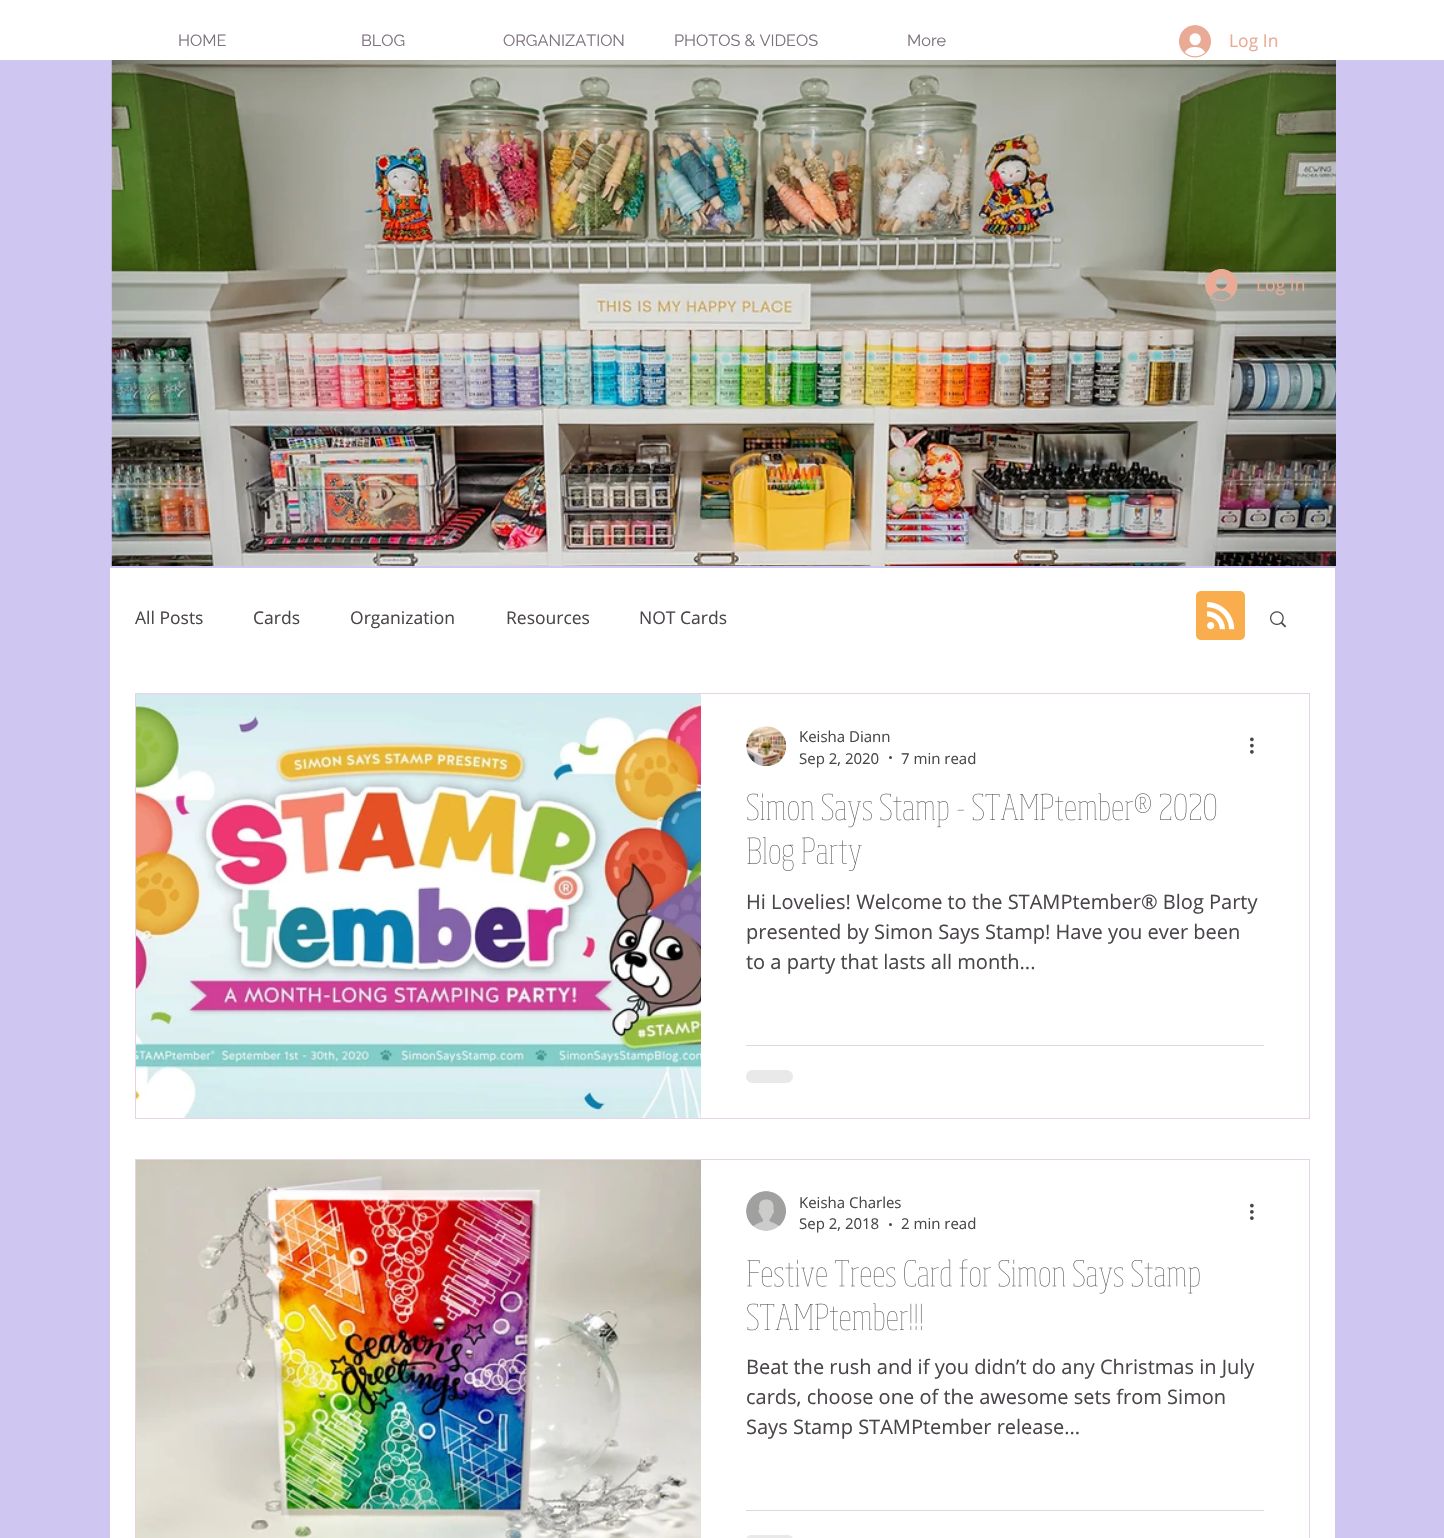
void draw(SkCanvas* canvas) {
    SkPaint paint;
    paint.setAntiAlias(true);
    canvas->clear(0xFFCFC7F2);
    paint.setColor(0xFFFFFFFF);
    canvas->drawRect(SkRect::MakeXYWH(0, 0, 1444, 60), paint);
    SkFont font1(fontMgr->matchFamilyStyle("Raleway", SkFontStyle::Normal()), 16.25f);
    font1.setSubpixel(true);
    paint.setColor(0xFF7D727D);
    canvas->drawString("HOME", 178, 46, font1, paint);
    canvas->drawString("BLOG", 361, 46, font1, paint);
    canvas->drawString("ORGANIZATION", 503, 46, font1, paint);
    canvas->drawString("PHOTOS & VIDEOS", 674, 46, font1, paint);
    canvas->drawString("More", 907, 46, font1, paint);
    canvas->drawImageRect(SkImages::DeferredFromEncodedData(SkData::MakeFromFileName("img1.png")), SkRect::MakeXYWH(1179, 25, 32, 33), SkSamplingOptions());
    SkFont font2(fontMgr->matchFamilyStyle("Open Sans", SkFontStyle::Normal()), 17.5f);
    font2.setSubpixel(true);
    paint.setColor(0xFFEAAB96);
    canvas->drawString("Log In", 1229, 47, font2, paint);
    canvas->drawImageRect(SkImages::DeferredFromEncodedData(SkData::MakeFromFileName("img2.png")), SkRect::MakeXYWH(111, 60, 1225, 506), SkSamplingOptions());
    canvas->drawImageRect(SkImages::DeferredFromEncodedData(SkData::MakeFromFileName("img3.png")), SkRect::MakeXYWH(1205, 269, 33, 32), SkSamplingOptions());
    canvas->drawString("Log In", 1256, 291, font2, paint);
    paint.setColor(0xFFFFFFFF);
    canvas->drawRect(SkRect::MakeXYWH(110, 568, 1225, 970), paint);
    canvas->drawImageRect(SkImages::DeferredFromEncodedData(SkData::MakeFromFileName("img4.png")), SkRect::MakeXYWH(1196, 591, 49, 49), SkSamplingOptions());
    paint.setColor(0xFF4A454A);
    canvas->drawString("All Posts", 135, 624, font2, paint);
    canvas->drawString("Cards", 253, 624, font2, paint);
    canvas->drawString("Organization", 350, 624, font2, paint);
    canvas->drawString("Resources", 506, 624, font2, paint);
    canvas->drawString("NOT Cards", 639, 624, font2, paint);
    canvas->drawImageRect(SkImages::DeferredFromEncodedData(SkData::MakeFromFileName("img5.png")), SkRect::MakeXYWH(1270, 611, 17, 17), SkSamplingOptions());
    paint.setStyle(SkPaint::kStroke_Style);
    paint.setStrokeWidth(1);
    paint.setColor(0xFFE5D4E5);
    canvas->drawRect(SkRect::MakeXYWH(135.5f, 693.5f, 1174, 425), paint);
    canvas->drawImageRect(SkImages::DeferredFromEncodedData(SkData::MakeFromFileName("img6.png")), SkRect::MakeXYWH(136, 694, 565, 424), SkSamplingOptions());
    canvas->drawImageRect(SkImages::DeferredFromEncodedData(SkData::MakeFromFileName("img7.png")), SkRect::MakeXYWH(746, 726, 41, 41), SkSamplingOptions());
    SkFont font3(fontMgr->matchFamilyStyle("Open Sans", SkFontStyle::Normal()), 15);
    font3.setSubpixel(true);
    paint.setStyle(SkPaint::kFill_Style);
    paint.setColor(0xFF4A454A);
    canvas->drawString("Keisha Diann", 799, 742, font3, paint);
    canvas->drawString("Sep 2, 2020", 799, 764, font3, paint);
    canvas->drawCircle(890.5f, 757.5f, 1.5f, paint);
    canvas->drawString("7 min read", 901, 764, font3, paint);
    canvas->drawImageRect(SkImages::DeferredFromEncodedData(SkData::MakeFromFileName("img8.png")), SkRect::MakeXYWH(1250, 737, 4, 17), SkSamplingOptions());
    canvas->drawImageRect(SkImages::DeferredFromEncodedData(SkData::MakeFromFileName("img9.png")), SkRect::MakeXYWH(747, 793, 470, 35), SkSamplingOptions());
    canvas->drawImageRect(SkImages::DeferredFromEncodedData(SkData::MakeFromFileName("img10.png")), SkRect::MakeXYWH(747, 837, 115, 34), SkSamplingOptions());
    SkFont font4(fontMgr->matchFamilyStyle("Open Sans", SkFontStyle::Normal()), 20);
    font4.setSubpixel(true);
    canvas->drawString("Hi Lovelies! Welcome to the STAMPtember® Blog Party", 746, 909, font4, paint);
    canvas->drawString("presented by Simon Says Stamp! Have you ever been", 746, 939, font4, paint);
    canvas->drawString("to a party that lasts all month...", 746, 969, font4, paint);
    paint.setColor(0xFFDBDADB);
    canvas->drawRect(SkRect::MakeXYWH(746, 1045, 518, 1), paint);
    paint.setColor(0xFFE9E9E9);
    canvas->drawRoundRect(SkRect::MakeXYWH(746, 1070, 47, 13), 6.5f, 6.5f, paint);
    paint.setStyle(SkPaint::kStroke_Style);
    paint.setColor(0xFFE5D4E5);
    canvas->drawRect(SkRect::MakeXYWH(135.5f, 1159.5f, 1174, 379), paint);
    canvas->drawImageRect(SkImages::DeferredFromEncodedData(SkData::MakeFromFileName("img11.png")), SkRect::MakeXYWH(136, 1160, 565, 378), SkSamplingOptions());
    canvas->drawImageRect(SkImages::DeferredFromEncodedData(SkData::MakeFromFileName("img12.png")), SkRect::MakeXYWH(746, 1191, 40, 40), SkSamplingOptions());
    paint.setStyle(SkPaint::kFill_Style);
    paint.setColor(0xFF4A454A);
    canvas->drawString("Keisha Charles", 799, 1208, font3, paint);
    canvas->drawString("Sep 2, 2018", 799, 1229, font3, paint);
    canvas->drawCircle(890.5f, 1224.5f, 1.5f, paint);
    canvas->drawString("2 min read", 901, 1229, font3, paint);
    canvas->drawImageRect(SkImages::DeferredFromEncodedData(SkData::MakeFromFileName("img13.png")), SkRect::MakeXYWH(1250, 1203, 4, 17), SkSamplingOptions());
    canvas->drawImageRect(SkImages::DeferredFromEncodedData(SkData::MakeFromFileName("img14.png")), SkRect::MakeXYWH(747, 1259, 453, 35), SkSamplingOptions());
    canvas->drawImageRect(SkImages::DeferredFromEncodedData(SkData::MakeFromFileName("img15.png")), SkRect::MakeXYWH(747, 1303, 175, 28), SkSamplingOptions());
    canvas->drawString("Beat the rush and if you didn’t do any Christmas in July", 746, 1374, font4, paint);
    canvas->drawString("cards, choose one of the awesome sets from Simon", 746, 1404, font4, paint);
    canvas->drawString("Says Stamp STAMPtember release...", 746, 1434, font4, paint);
    paint.setColor(0xFFDBDADB);
    canvas->drawRect(SkRect::MakeXYWH(746, 1510, 518, 1), paint);
    paint.setColor(0xFFE9E9E9);
    canvas->drawRoundRect(SkRect::MakeXYWH(746, 1535, 47, 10), 6.5f, 6.5f, paint);
}
